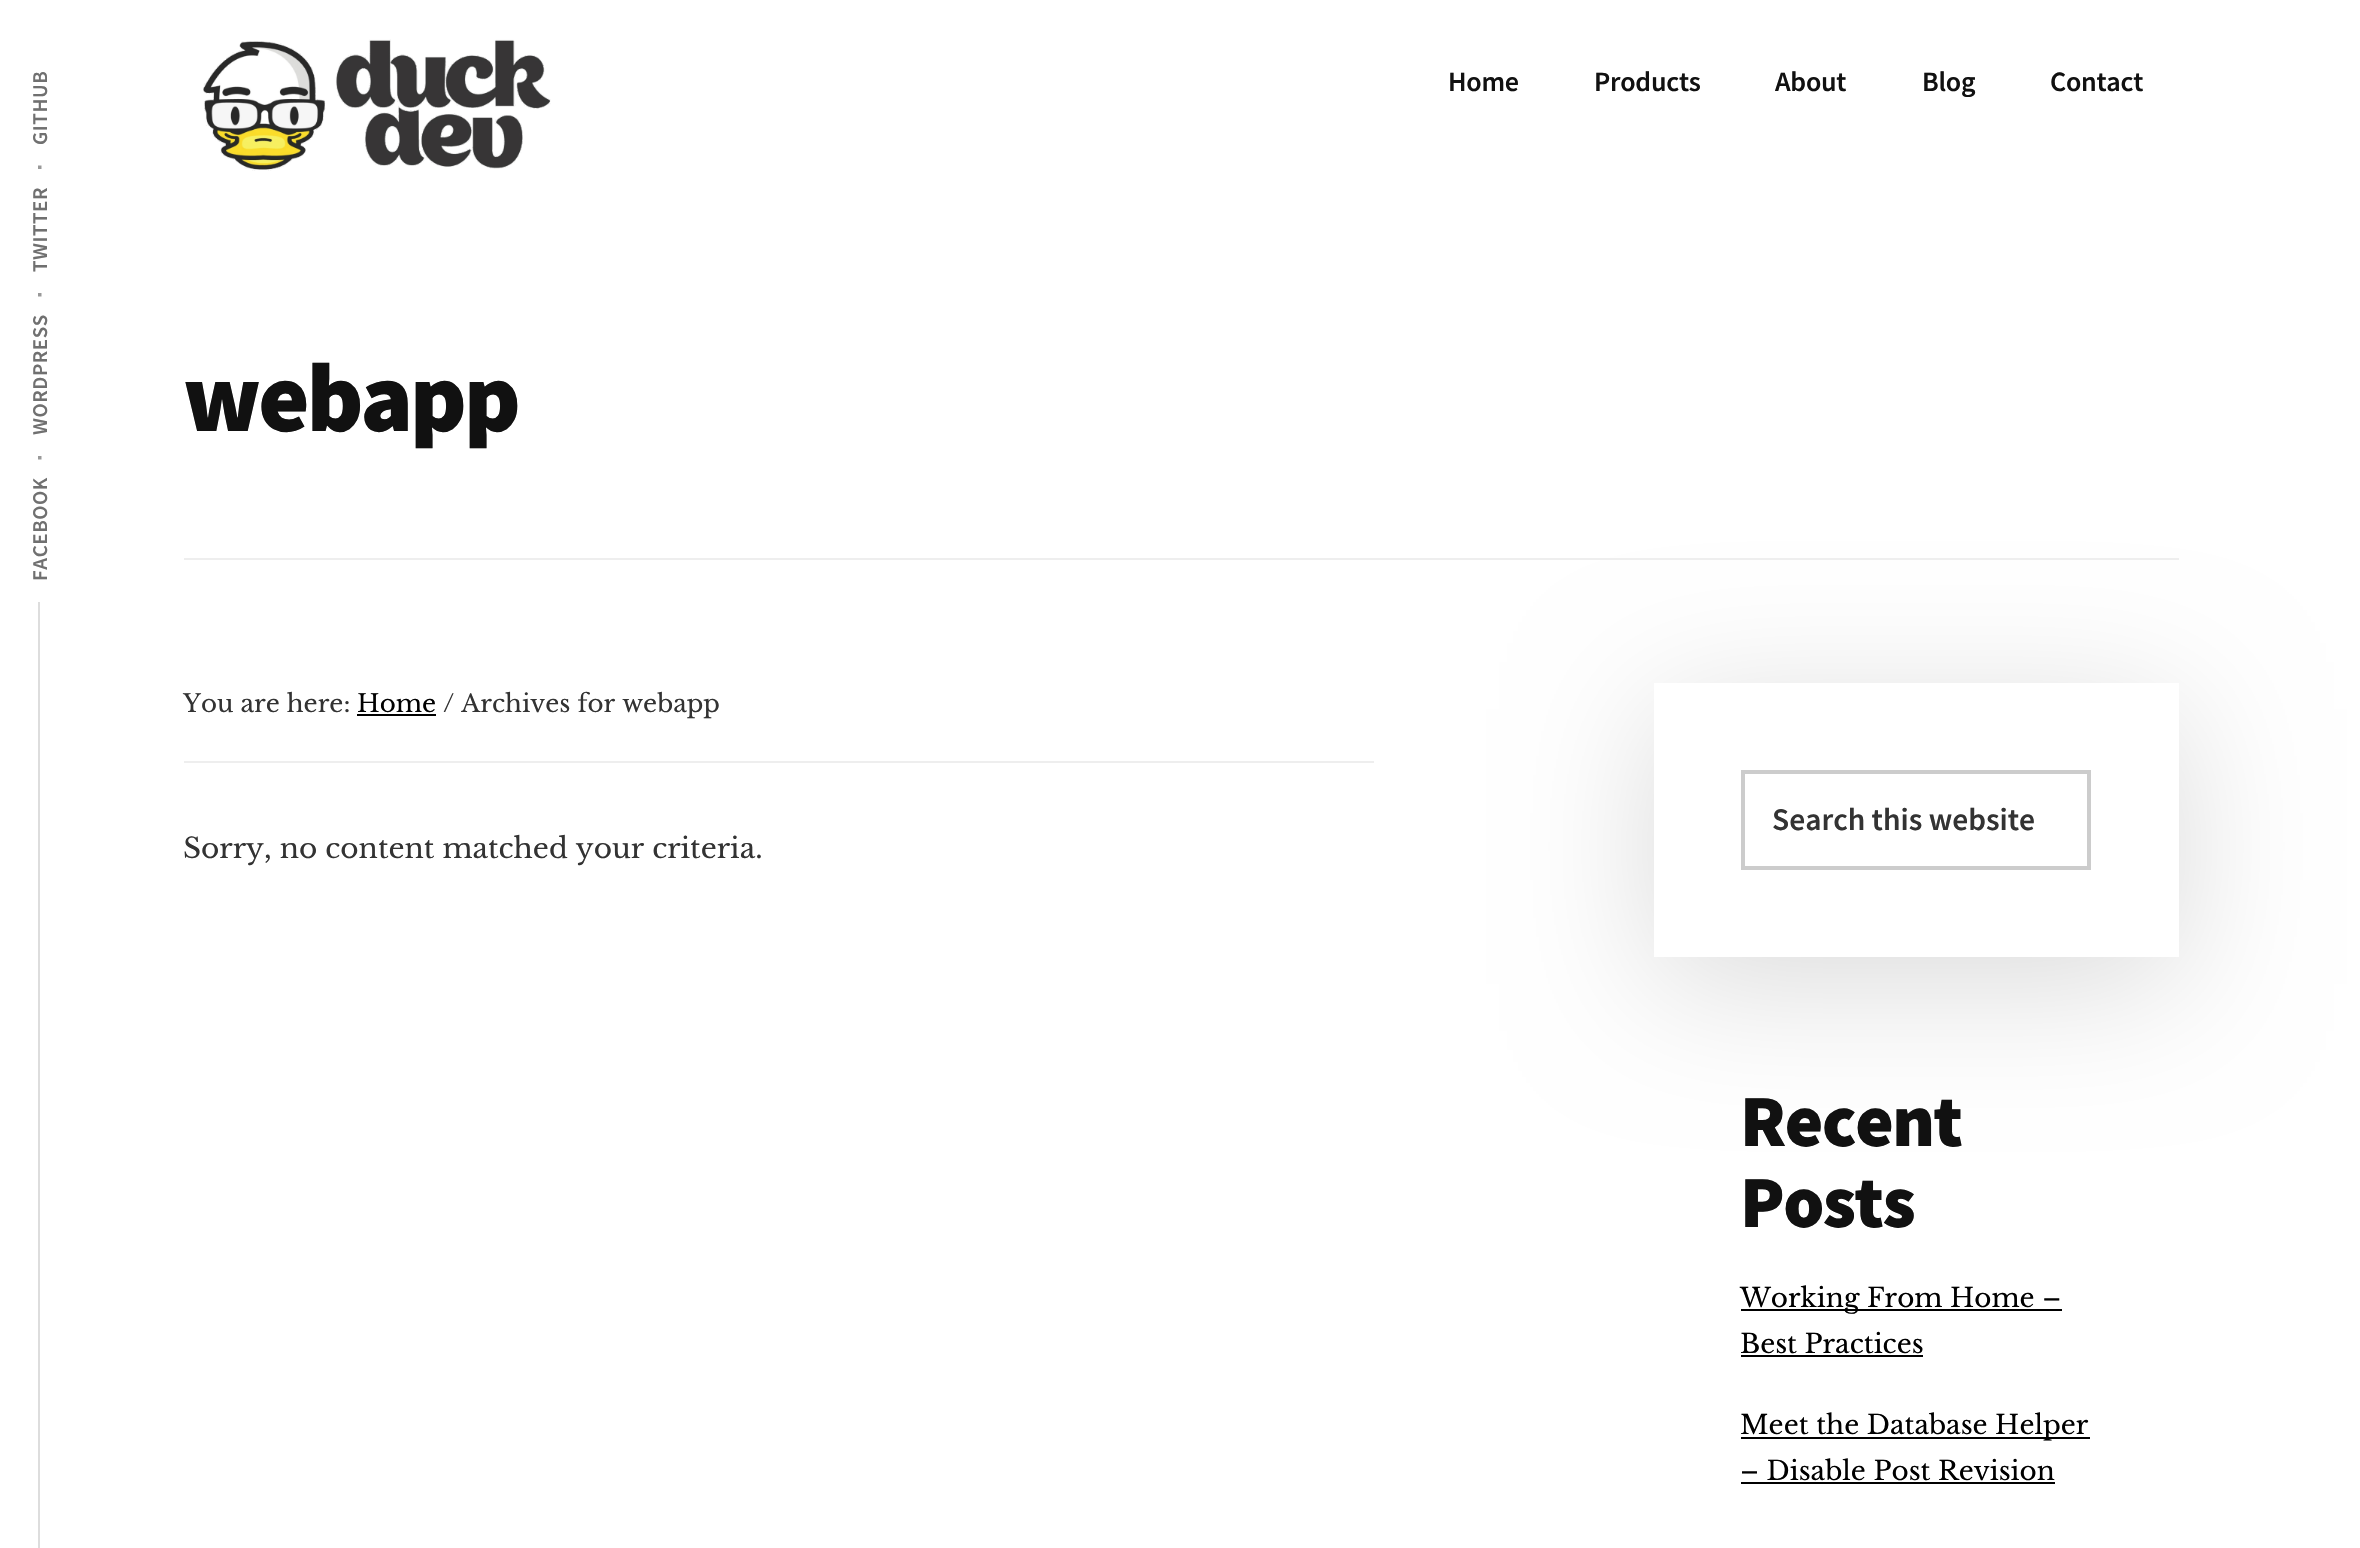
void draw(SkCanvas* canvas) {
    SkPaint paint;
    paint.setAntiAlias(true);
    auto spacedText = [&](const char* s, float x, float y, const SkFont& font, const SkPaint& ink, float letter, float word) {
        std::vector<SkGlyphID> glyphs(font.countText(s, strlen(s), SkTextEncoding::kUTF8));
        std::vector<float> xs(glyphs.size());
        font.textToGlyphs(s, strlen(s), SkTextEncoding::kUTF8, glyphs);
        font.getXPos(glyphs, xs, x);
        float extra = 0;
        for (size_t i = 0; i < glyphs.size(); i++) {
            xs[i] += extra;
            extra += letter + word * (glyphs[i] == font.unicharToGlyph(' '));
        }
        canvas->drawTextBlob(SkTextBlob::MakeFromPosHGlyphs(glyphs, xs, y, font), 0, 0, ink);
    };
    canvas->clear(0xFFFFFFFF);
    SkFont font1(fontMgr->matchFamilyStyle("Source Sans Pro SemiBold", SkFontStyle(600, SkFontStyle::kNormal_Width, SkFontStyle::kUpright_Slant)), 21);
    font1.setSubpixel(true);
    paint.setColor(0xFF707070);
    canvas->save();
    canvas->rotate(-90, 47, 145);
    spacedText("GITHUB", 47, 145, font1, paint, 0.6f, 0);
    canvas->restore();
    paint.setColor(0xFF999999);
    canvas->drawPath(SkPathBuilder().moveTo(38, 169).lineTo(38, 165.5f).lineTo(41.5f, 165.5f).lineTo(41.5f, 169).close().detach(), paint);
    paint.setColor(0xFF707070);
    canvas->save();
    canvas->rotate(-90, 47, 272);
    spacedText("TWITTER", 47, 272, font1, paint, 0.6f, 0);
    canvas->restore();
    paint.setColor(0xFF999999);
    canvas->drawPath(SkPathBuilder().moveTo(38, 296.5f).lineTo(38, 293).lineTo(41.5f, 293).lineTo(41.5f, 296.5f).close().detach(), paint);
    paint.setColor(0xFF707070);
    canvas->save();
    canvas->rotate(-90, 47, 435);
    spacedText("WORDPRESS", 47, 435, font1, paint, 0.6f, 0);
    canvas->restore();
    paint.setColor(0xFF999999);
    canvas->drawPath(SkPathBuilder().moveTo(38, 459.5f).lineTo(38, 456).lineTo(41.5f, 456).lineTo(41.5f, 459.5f).close().detach(), paint);
    paint.setColor(0xFF707070);
    canvas->save();
    canvas->rotate(-90, 47, 581);
    spacedText("FACEBOOK", 47, 581, font1, paint, 0.6f, 0);
    canvas->restore();
    paint.setColor(0xFFDDDDDD);
    canvas->drawRect(SkRect::MakeXYWH(38, 602, 2, 946), paint);
    canvas->drawImageRect(SkImages::DeferredFromEncodedData(SkData::MakeFromFileName("img1.png")), SkRect::MakeXYWH(203, 39, 348, 132), SkSamplingOptions());
    SkFont font2(fontMgr->matchFamilyStyle("Source Sans Pro SemiBold", SkFontStyle(600, SkFontStyle::kNormal_Width, SkFontStyle::kUpright_Slant)), 28);
    font2.setSubpixel(true);
    paint.setColor(0xFF111111);
    spacedText("Home", 1448, 91, font2, paint, -0.25f, 0);
    spacedText("Products", 1594, 91, font2, paint, -0.25f, 0);
    spacedText("About", 1775, 91, font2, paint, -0.25f, 0);
    spacedText("Blog", 1922, 91, font2, paint, -0.25f, 0);
    spacedText("Contact", 2050, 91, font2, paint, -0.25f, 0);
    paint.setColor(0x24000000);
    paint.setMaskFilter(SkMaskFilter::MakeBlur(kNormal_SkBlurStyle, 70));
    canvas->drawRect(SkRect::MakeXYWH(1654, 709, 525, 275), paint);
    paint.setMaskFilter(nullptr);
    paint.setColor(0xFFEEEEEE);
    canvas->drawRect(SkRect::MakeXYWH(184, 558, 1995, 2), paint);
    SkFont font3(fontMgr->matchFamilyStyle("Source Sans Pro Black", SkFontStyle(900, SkFontStyle::kNormal_Width, SkFontStyle::kUpright_Slant)), 98);
    font3.setSubpixel(true);
    paint.setColor(0xFF111111);
    spacedText("webapp", 183, 431, font3, paint, -3, 0);
    paint.setColor(0xFFEEEEEE);
    canvas->drawRect(SkRect::MakeXYWH(184, 761, 1190, 2), paint);
    SkFont font4(fontMgr->matchFamilyStyle("Libre Baskerville", SkFontStyle::Normal()), 24.5f);
    font4.setSubpixel(true);
    paint.setColor(0xFF333333);
    canvas->drawString("You are here:", 183, 712, font4, paint);
    paint.setColor(0xFF000000);
    canvas->drawString("Home", 357, 712, font4, paint);
    canvas->drawRect(SkRect::MakeXYWH(357, 714, 79, 2), paint);
    paint.setColor(0xFF333333);
    canvas->drawString("/ Archives for webapp", 443, 712, font4, paint);
    SkFont font5(fontMgr->matchFamilyStyle("Libre Baskerville", SkFontStyle::Normal()), 28);
    font5.setSubpixel(true);
    canvas->drawString("Sorry, no content matched your criteria.", 183, 858, font5, paint);
    paint.setColor(0xFFFFFFFF);
    canvas->drawRect(SkRect::MakeXYWH(1654, 683, 525, 274), paint);
    paint.setStyle(SkPaint::kStroke_Style);
    paint.setStrokeWidth(4);
    paint.setColor(0xFFCCCCCC);
    canvas->drawRect(SkRect::MakeXYWH(1743, 772, 346, 96), paint);
    SkFont font6(fontMgr->matchFamilyStyle("Source Sans Pro SemiBold", SkFontStyle(600, SkFontStyle::kNormal_Width, SkFontStyle::kUpright_Slant)), 31.5f);
    font6.setSubpixel(true);
    paint.setStyle(SkPaint::kFill_Style);
    paint.setColor(0xFF333333);
    canvas->drawString("Search this website", 1772, 830, font6, paint);
    SkFont font7(fontMgr->matchFamilyStyle("Source Sans Pro Black", SkFontStyle(900, SkFontStyle::kNormal_Width, SkFontStyle::kUpright_Slant)), 73.5f);
    font7.setSubpixel(true);
    paint.setColor(0xFF111111);
    spacedText("Recent", 1740, 1146, font7, paint, -1.5f, 0);
    spacedText("Posts", 1740, 1227, font7, paint, -1.5f, 0);
    paint.setColor(0xFF000000);
    canvas->drawRect(SkRect::MakeXYWH(1741, 1309, 321, 2), paint);
    SkFont font8(fontMgr->matchFamilyStyle("Libre Baskerville", SkFontStyle::Normal()), 26.25f);
    font8.setSubpixel(true);
    canvas->drawString("Working From Home –", 1740, 1307, font8, paint);
    canvas->drawString("Best Practices", 1740, 1353, font8, paint);
    canvas->drawRect(SkRect::MakeXYWH(1741, 1355, 182, 2), paint);
    canvas->drawRect(SkRect::MakeXYWH(1741, 1437, 349, 2), paint);
    canvas->drawString("Meet the Database Helper", 1740, 1434, font8, paint);
    canvas->drawString("– Disable Post Revision", 1740, 1480, font8, paint);
    canvas->drawRect(SkRect::MakeXYWH(1741, 1482, 314, 2), paint);
}
